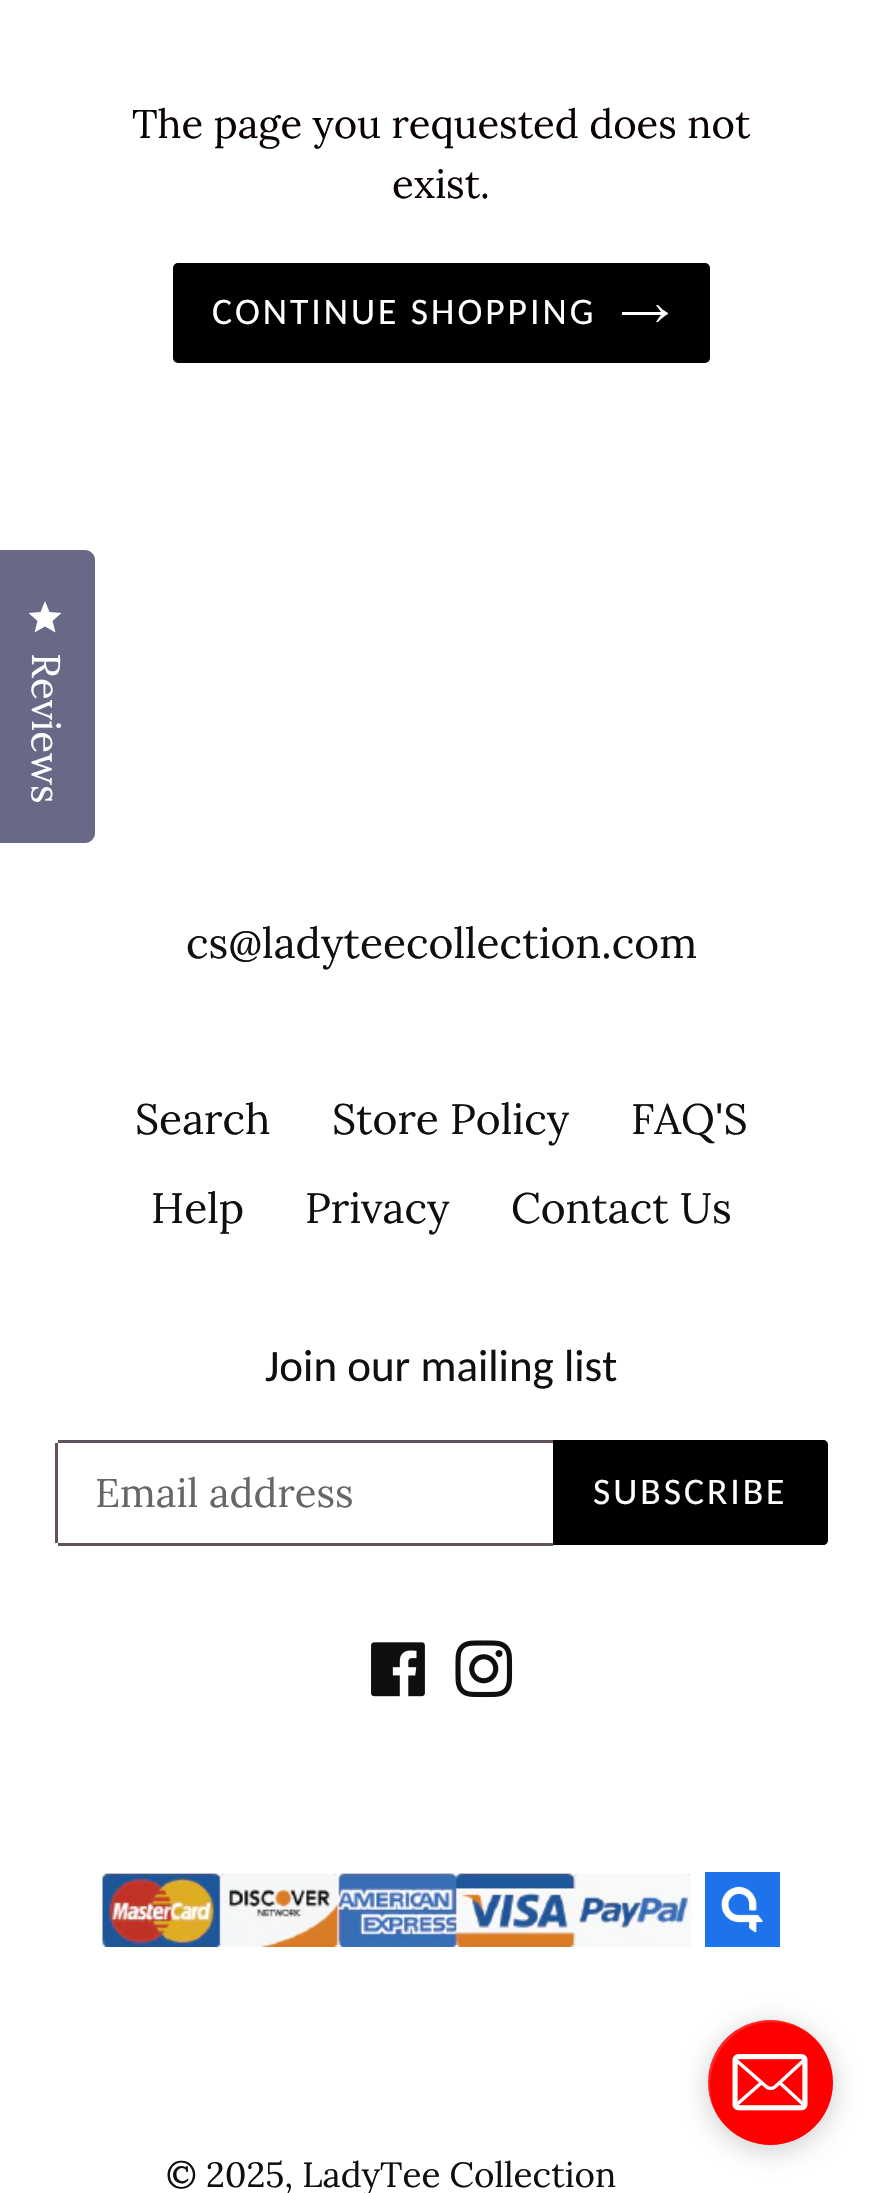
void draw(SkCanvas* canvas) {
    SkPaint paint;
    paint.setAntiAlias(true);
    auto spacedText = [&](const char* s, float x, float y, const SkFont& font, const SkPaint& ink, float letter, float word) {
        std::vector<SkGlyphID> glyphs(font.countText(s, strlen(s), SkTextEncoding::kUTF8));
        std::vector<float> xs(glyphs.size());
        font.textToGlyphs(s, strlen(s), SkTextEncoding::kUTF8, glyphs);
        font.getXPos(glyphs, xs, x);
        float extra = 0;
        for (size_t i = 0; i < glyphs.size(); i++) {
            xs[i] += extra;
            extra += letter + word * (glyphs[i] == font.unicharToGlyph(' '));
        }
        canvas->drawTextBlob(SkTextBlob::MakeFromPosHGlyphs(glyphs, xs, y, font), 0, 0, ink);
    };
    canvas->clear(0xFFFFFFFF);
    paint.setColor(0xFF676986);
    canvas->drawPath(SkPathBuilder().moveTo(-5, 550).lineTo(85, 550).cubicTo(90.5f, 550, 95, 554.5f, 95, 560).lineTo(95, 833).cubicTo(95, 838.5f, 90.5f, 843, 85, 843).lineTo(-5, 843).close().detach(), paint);
    paint.setColor(0xFFFFFFFF);
    canvas->drawPath(SkPathBuilder().moveTo(45, 626.5f).lineTo(55.5f, 632.5f).lineTo(52.5f, 621).lineTo(61.5f, 613).lineTo(49.5f, 612).lineTo(45, 601).lineTo(40.5f, 612).lineTo(28.5f, 613).lineTo(37.5f, 621).lineTo(34.5f, 632.5f).close().detach(), paint);
    SkFont font1(fontMgr->matchFamilyStyle("Lora", SkFontStyle::Normal()), 40);
    font1.setSubpixel(true);
    paint.setColor(0xFFFDFFFF);
    canvas->save();
    canvas->rotate(90.1f, 32, 653);
    canvas->drawString("Reviews", 32, 653, font1, paint);
    canvas->restore();
    paint.setColor(0xFF0A0101);
    canvas->drawString("The page you requested does not", 132, 138, font1, paint);
    canvas->drawString("exist.", 392, 198, font1, paint);
    paint.setColor(0xFF000000);
    canvas->drawRoundRect(SkRect::MakeXYWH(173, 263, 537, 100), 5, 5, paint);
    SkFont font2(fontMgr->matchFamilyStyle("Carlito", SkFontStyle::Normal()), 37.5f);
    font2.setSubpixel(true);
    paint.setColor(0xFFFDFFFF);
    spacedText("CONTINUE SHOPPING", 212, 324, font2, paint, 3, 0);
    canvas->drawPath(SkPathBuilder(SkPathFillType::kEvenOdd).moveTo(658, 305).cubicTo(661, 308, 664, 311, 668, 313).lineTo(668, 314).cubicTo(664, 316, 661, 319, 658, 322).lineTo(656, 322).cubicTo(658, 319, 659, 317, 661, 315).lineTo(622, 315).lineTo(622, 312).lineTo(661, 312).lineTo(656, 305).close().detach(), paint);
    SkFont font3(fontMgr->matchFamilyStyle("Lora", SkFontStyle::Normal()), 42.5f);
    font3.setSubpixel(true);
    paint.setColor(0xFF0F0F10);
    canvas->drawString("cs@ladyteecollection.com", 186, 958, font3, paint);
    canvas->drawString("Search", 135, 1134, font3, paint);
    canvas->drawString("Store Policy", 332, 1134, font3, paint);
    canvas->drawString("FAQ'S", 631, 1134, font3, paint);
    canvas->drawString("Help", 151, 1223, font3, paint);
    canvas->drawString("Privacy", 305, 1223, font3, paint);
    canvas->drawString("Contact Us", 511, 1223, font3, paint);
    SkFont font4(fontMgr->matchFamilyStyle("Carlito", SkFontStyle::Normal()), 45);
    font4.setSubpixel(true);
    canvas->drawString("Join our mailing list", 265, 1381, font4, paint);
    paint.setColor(0xFF62525D);
    canvas->drawRect(SkRect::MakeXYWH(58, 1440, 495, 3), paint);
    canvas->drawRect(SkRect::MakeXYWH(58, 1543, 495, 3), paint);
    canvas->drawRect(SkRect::MakeXYWH(55, 1443, 3, 100), paint);
    paint.setColor(0xFF666666);
    canvas->drawString("Email address", 95, 1507, font1, paint);
    paint.setColor(0xFF000000);
    canvas->drawPath(SkPathBuilder().moveTo(553, 1440).lineTo(823, 1440).cubicTo(826, 1440, 828, 1442, 828, 1445).lineTo(828, 1540).cubicTo(828, 1543, 826, 1545, 823, 1545).lineTo(553, 1545).close().detach(), paint);
    paint.setColor(0xFFFDFFFF);
    spacedText("SUBSCRIBE", 593, 1504, font2, paint, 3, 0);
    canvas->drawImageRect(SkImages::DeferredFromEncodedData(SkData::MakeFromFileName("img1.png")), SkRect::MakeXYWH(371, 1642, 54, 55), SkSamplingOptions());
    canvas->drawImageRect(SkImages::DeferredFromEncodedData(SkData::MakeFromFileName("img2.png")), SkRect::MakeXYWH(455, 1640, 58, 58), SkSamplingOptions());
    canvas->drawImageRect(SkImages::DeferredFromEncodedData(SkData::MakeFromFileName("img3.png")), SkRect::MakeXYWH(102, 1873, 590, 74), SkSamplingOptions());
    canvas->drawImageRect(SkImages::DeferredFromEncodedData(SkData::MakeFromFileName("img4.png")), SkRect::MakeXYWH(705, 1872, 75, 75), SkSamplingOptions());
    SkFont font5(fontMgr->matchFamilyStyle("Lora", SkFontStyle::Normal()), 35);
    font5.setSubpixel(true);
    paint.setColor(0xFF0F0F10);
    canvas->drawString("© 2025, LadyTee Collection", 166, 2187, font5, paint);
    paint.setColor(0x66808080);
    paint.setMaskFilter(SkMaskFilter::MakeBlur(kNormal_SkBlurStyle, 14));
    canvas->drawRoundRect(SkRect::MakeXYWH(708, 2025, 125, 125), 62.5f, 62.5f, paint);
    paint.setMaskFilter(nullptr);
    paint.setColor(0xFFFF0000);
    canvas->drawCircle(770.5f, 2082.5f, 62.5f, paint);
    paint.setColor(0x26FFFFFF);
    canvas->drawPath(SkPathBuilder().moveTo(772, 2022).cubicTo(790, 2022, 806, 2029, 817, 2041).cubicTo(797, 2018, 761, 2013, 736, 2031).cubicTo(706, 2051, 699, 2091, 720, 2119).cubicTo(694, 2079, 722, 2022, 772, 2022).close().detach(), paint);
    canvas->drawImageRect(SkImages::DeferredFromEncodedData(SkData::MakeFromFileName("img5.png")), SkRect::MakeXYWH(732, 2054, 76, 57), SkSamplingOptions());
}
